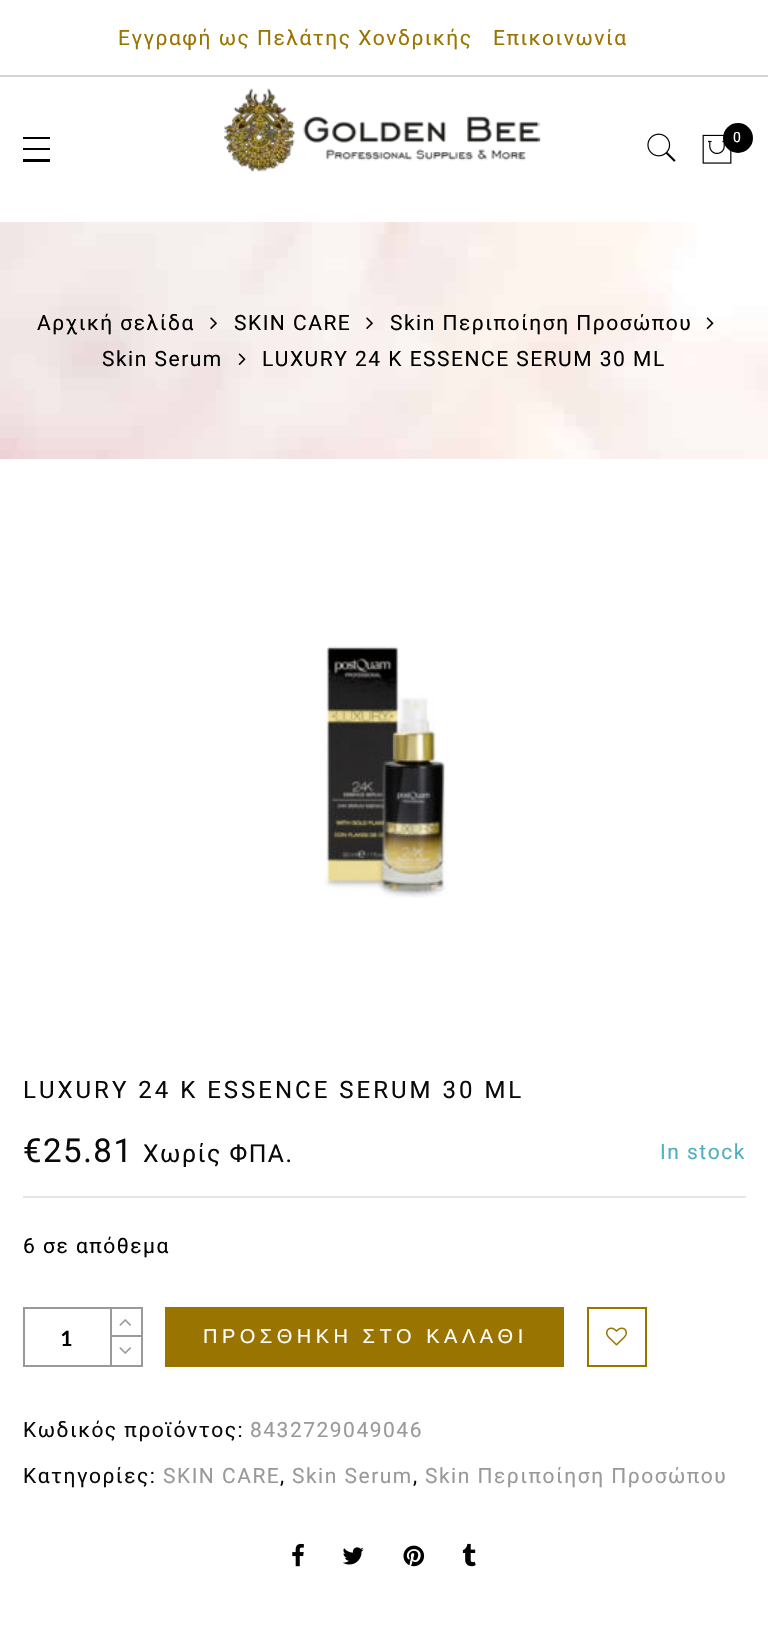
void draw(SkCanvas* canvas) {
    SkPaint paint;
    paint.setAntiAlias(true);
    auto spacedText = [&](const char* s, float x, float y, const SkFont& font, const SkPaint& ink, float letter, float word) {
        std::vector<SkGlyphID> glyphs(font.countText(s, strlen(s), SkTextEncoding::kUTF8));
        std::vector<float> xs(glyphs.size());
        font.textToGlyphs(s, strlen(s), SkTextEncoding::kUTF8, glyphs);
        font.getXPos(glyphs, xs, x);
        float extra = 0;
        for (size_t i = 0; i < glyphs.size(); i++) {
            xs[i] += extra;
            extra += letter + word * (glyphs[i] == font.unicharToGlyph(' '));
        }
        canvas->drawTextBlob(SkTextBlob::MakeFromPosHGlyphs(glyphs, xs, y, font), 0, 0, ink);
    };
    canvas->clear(0xFFFFFFFF);
    paint.setColor(0xFFD3D3D3);
    canvas->drawRect(SkRect::MakeXYWH(0, 75, 768, 2), paint);
    SkFont font1(fontMgr->matchFamilyStyle("Roboto", SkFontStyle::Normal()), 21);
    font1.setSubpixel(true);
    paint.setColor(0xFF997500);
    spacedText("Εγγραφή ως Πελάτης Χονδρικής", 118, 45, font1, paint, 1.5f, 0);
    spacedText("Επικοινωνία", 493, 45, font1, paint, 1.5f, 0);
    paint.setColor(0xFF000000);
    canvas->drawRect(SkRect::MakeXYWH(23, 137, 27, 2), paint);
    canvas->drawRect(SkRect::MakeXYWH(23, 148, 27, 2), paint);
    canvas->drawRect(SkRect::MakeXYWH(23, 159, 27, 3), paint);
    canvas->drawImageRect(SkImages::DeferredFromEncodedData(SkData::MakeFromFileName("img1.png")), SkRect::MakeXYWH(224, 88, 317, 84), SkSamplingOptions());
    canvas->drawImageRect(SkImages::DeferredFromEncodedData(SkData::MakeFromFileName("img2.png")), SkRect::MakeXYWH(647, 133, 29, 29), SkSamplingOptions());
    canvas->drawImageRect(SkImages::DeferredFromEncodedData(SkData::MakeFromFileName("img3.png")), SkRect::MakeXYWH(702, 134, 30, 30), SkSamplingOptions());
    canvas->drawCircle(738, 138, 15, paint);
    SkFont font2(fontMgr->matchFamilyStyle("Roboto", SkFontStyle::Normal()), 14);
    font2.setSubpixel(true);
    paint.setColor(0xFFFFFFFF);
    spacedText("0", 733, 142, font2, paint, 1.5f, 0);
    canvas->drawImageRect(SkImages::DeferredFromEncodedData(SkData::MakeFromFileName("img4.png")), SkRect::MakeXYWH(0, 222, 768, 237), SkSamplingOptions());
    paint.setColor(0xFF000000);
    spacedText("Αρχική σελίδα", 37, 330, font1, paint, 1.5f, 0);
    canvas->drawImageRect(SkImages::DeferredFromEncodedData(SkData::MakeFromFileName("img5.png")), SkRect::MakeXYWH(210, 317, 7, 12), SkSamplingOptions());
    spacedText("SKIN CARE", 234, 330, font1, paint, 1.5f, 0);
    canvas->drawImageRect(SkImages::DeferredFromEncodedData(SkData::MakeFromFileName("img6.png")), SkRect::MakeXYWH(366, 317, 7, 12), SkSamplingOptions());
    spacedText("Skin Περιποίηση Προσώπου", 390, 330, font1, paint, 1.5f, 0);
    canvas->drawImageRect(SkImages::DeferredFromEncodedData(SkData::MakeFromFileName("img7.png")), SkRect::MakeXYWH(706, 317, 8, 12), SkSamplingOptions());
    spacedText("Skin Serum", 102, 366, font1, paint, 1.5f, 0);
    canvas->drawImageRect(SkImages::DeferredFromEncodedData(SkData::MakeFromFileName("img8.png")), SkRect::MakeXYWH(238, 353, 8, 12), SkSamplingOptions());
    spacedText("LUXURY 24 K ESSENCE SERUM 30 ML", 262, 366, font1, paint, 1.5f, 0);
    canvas->drawImageRect(SkImages::DeferredFromEncodedData(SkData::MakeFromFileName("img9.png")), SkRect::MakeXYWH(324, 646, 123, 252), SkSamplingOptions());
    SkFont font3(fontMgr->matchFamilyStyle("Roboto", SkFontStyle::Normal()), 24);
    font3.setSubpixel(true);
    paint.setColor(0xFF0A0A0A);
    spacedText("LUXURY 24 K ESSENCE SERUM 30 ML", 23, 1098, font3, paint, 3, 0);
    paint.setColor(0xFFE5E5E5);
    canvas->drawRect(SkRect::MakeXYWH(23, 1196, 723, 2), paint);
    SkFont font4(fontMgr->matchFamilyStyle("Roboto", SkFontStyle::Normal()), 33);
    font4.setSubpixel(true);
    paint.setColor(0xFF0A0A0A);
    spacedText("€25.81", 23, 1162, font4, paint, 1.5f, 0);
    SkFont font5(fontMgr->matchFamilyStyle("Roboto", SkFontStyle::Normal()), 24.75f);
    font5.setSubpixel(true);
    spacedText("Χωρίς ΦΠΑ.", 143, 1162, font5, paint, 1.5f, 0);
    paint.setColor(0xFF4EB0BE);
    spacedText("In stock", 660, 1159, font1, paint, 1.5f, 0);
    paint.setColor(0xFF000000);
    spacedText("6 σε απόθεμα", 23, 1253, font1, paint, 1.5f, 0);
    paint.setStyle(SkPaint::kStroke_Style);
    paint.setStrokeWidth(2);
    paint.setColor(0xFF999999);
    canvas->drawRect(SkRect::MakeXYWH(24, 1308, 118, 58), paint);
    paint.setStyle(SkPaint::kFill_Style);
    canvas->drawRect(SkRect::MakeXYWH(110, 1308, 2, 59), paint);
    SkFont font6(fontMgr->matchFamilyStyle("Lato", SkFontStyle::Bold()), 21);
    font6.setSubpixel(true);
    paint.setColor(0xFF000000);
    spacedText("1", 60, 1346, font6, paint, 1.5f, 0);
    paint.setColor(0xFF999999);
    canvas->drawRect(SkRect::MakeXYWH(111, 1335, 30, 2), paint);
    canvas->drawImageRect(SkImages::DeferredFromEncodedData(SkData::MakeFromFileName("img10.png")), SkRect::MakeXYWH(119, 1319, 12, 7), SkSamplingOptions());
    canvas->drawImageRect(SkImages::DeferredFromEncodedData(SkData::MakeFromFileName("img11.png")), SkRect::MakeXYWH(119, 1347, 12, 7), SkSamplingOptions());
    paint.setColor(0xFF997500);
    canvas->drawRect(SkRect::MakeXYWH(165, 1307, 399, 60), paint);
    SkFont font7(fontMgr->matchFamilyStyle("Liberation Sans", SkFontStyle::Normal()), 20);
    font7.setSubpixel(true);
    paint.setColor(0xFFFFFFFF);
    spacedText("ΠΡΟΣΘΗΚΗ ΣΤΟ ΚΑΛΑΘΙ", 203, 1343, font7, paint, 4.5f, 0);
    paint.setStyle(SkPaint::kStroke_Style);
    paint.setColor(0xFF997500);
    canvas->drawRect(SkRect::MakeXYWH(588, 1308, 58, 58), paint);
    canvas->drawImageRect(SkImages::DeferredFromEncodedData(SkData::MakeFromFileName("img12.png")), SkRect::MakeXYWH(606, 1327, 21, 19), SkSamplingOptions());
    paint.setStyle(SkPaint::kFill_Style);
    paint.setColor(0xFF0A0A0A);
    spacedText("Κωδικός προϊόντος:", 23, 1437, font1, paint, 1.5f, 0);
    paint.setColor(0xFF999999);
    spacedText("8432729049046", 250, 1437, font1, paint, 1.5f, 0);
    paint.setColor(0xFF0A0A0A);
    spacedText("Κατηγορίες:", 23, 1483, font1, paint, 1.5f, 0);
    paint.setColor(0xFF999999);
    spacedText("SKIN CARE", 163, 1483, font1, paint, 1.5f, 0);
    paint.setColor(0xFF0A0A0A);
    spacedText(",", 280, 1483, font1, paint, 1.5f, 0);
    paint.setColor(0xFF999999);
    spacedText("Skin Serum", 292, 1483, font1, paint, 1.5f, 0);
    paint.setColor(0xFF0A0A0A);
    spacedText(",", 413, 1483, font1, paint, 1.5f, 0);
    paint.setColor(0xFF999999);
    spacedText("Skin Περιποίηση Προσώπου", 425, 1483, font1, paint, 1.5f, 0);
    canvas->drawImageRect(SkImages::DeferredFromEncodedData(SkData::MakeFromFileName("img13.png")), SkRect::MakeXYWH(292, 1543, 12, 24), SkSamplingOptions());
    canvas->drawImageRect(SkImages::DeferredFromEncodedData(SkData::MakeFromFileName("img14.png")), SkRect::MakeXYWH(342, 1547, 22, 18), SkSamplingOptions());
    canvas->drawImageRect(SkImages::DeferredFromEncodedData(SkData::MakeFromFileName("img15.png")), SkRect::MakeXYWH(403, 1545, 22, 22), SkSamplingOptions());
    canvas->drawImageRect(SkImages::DeferredFromEncodedData(SkData::MakeFromFileName("img16.png")), SkRect::MakeXYWH(462, 1543, 14, 24), SkSamplingOptions());
}
